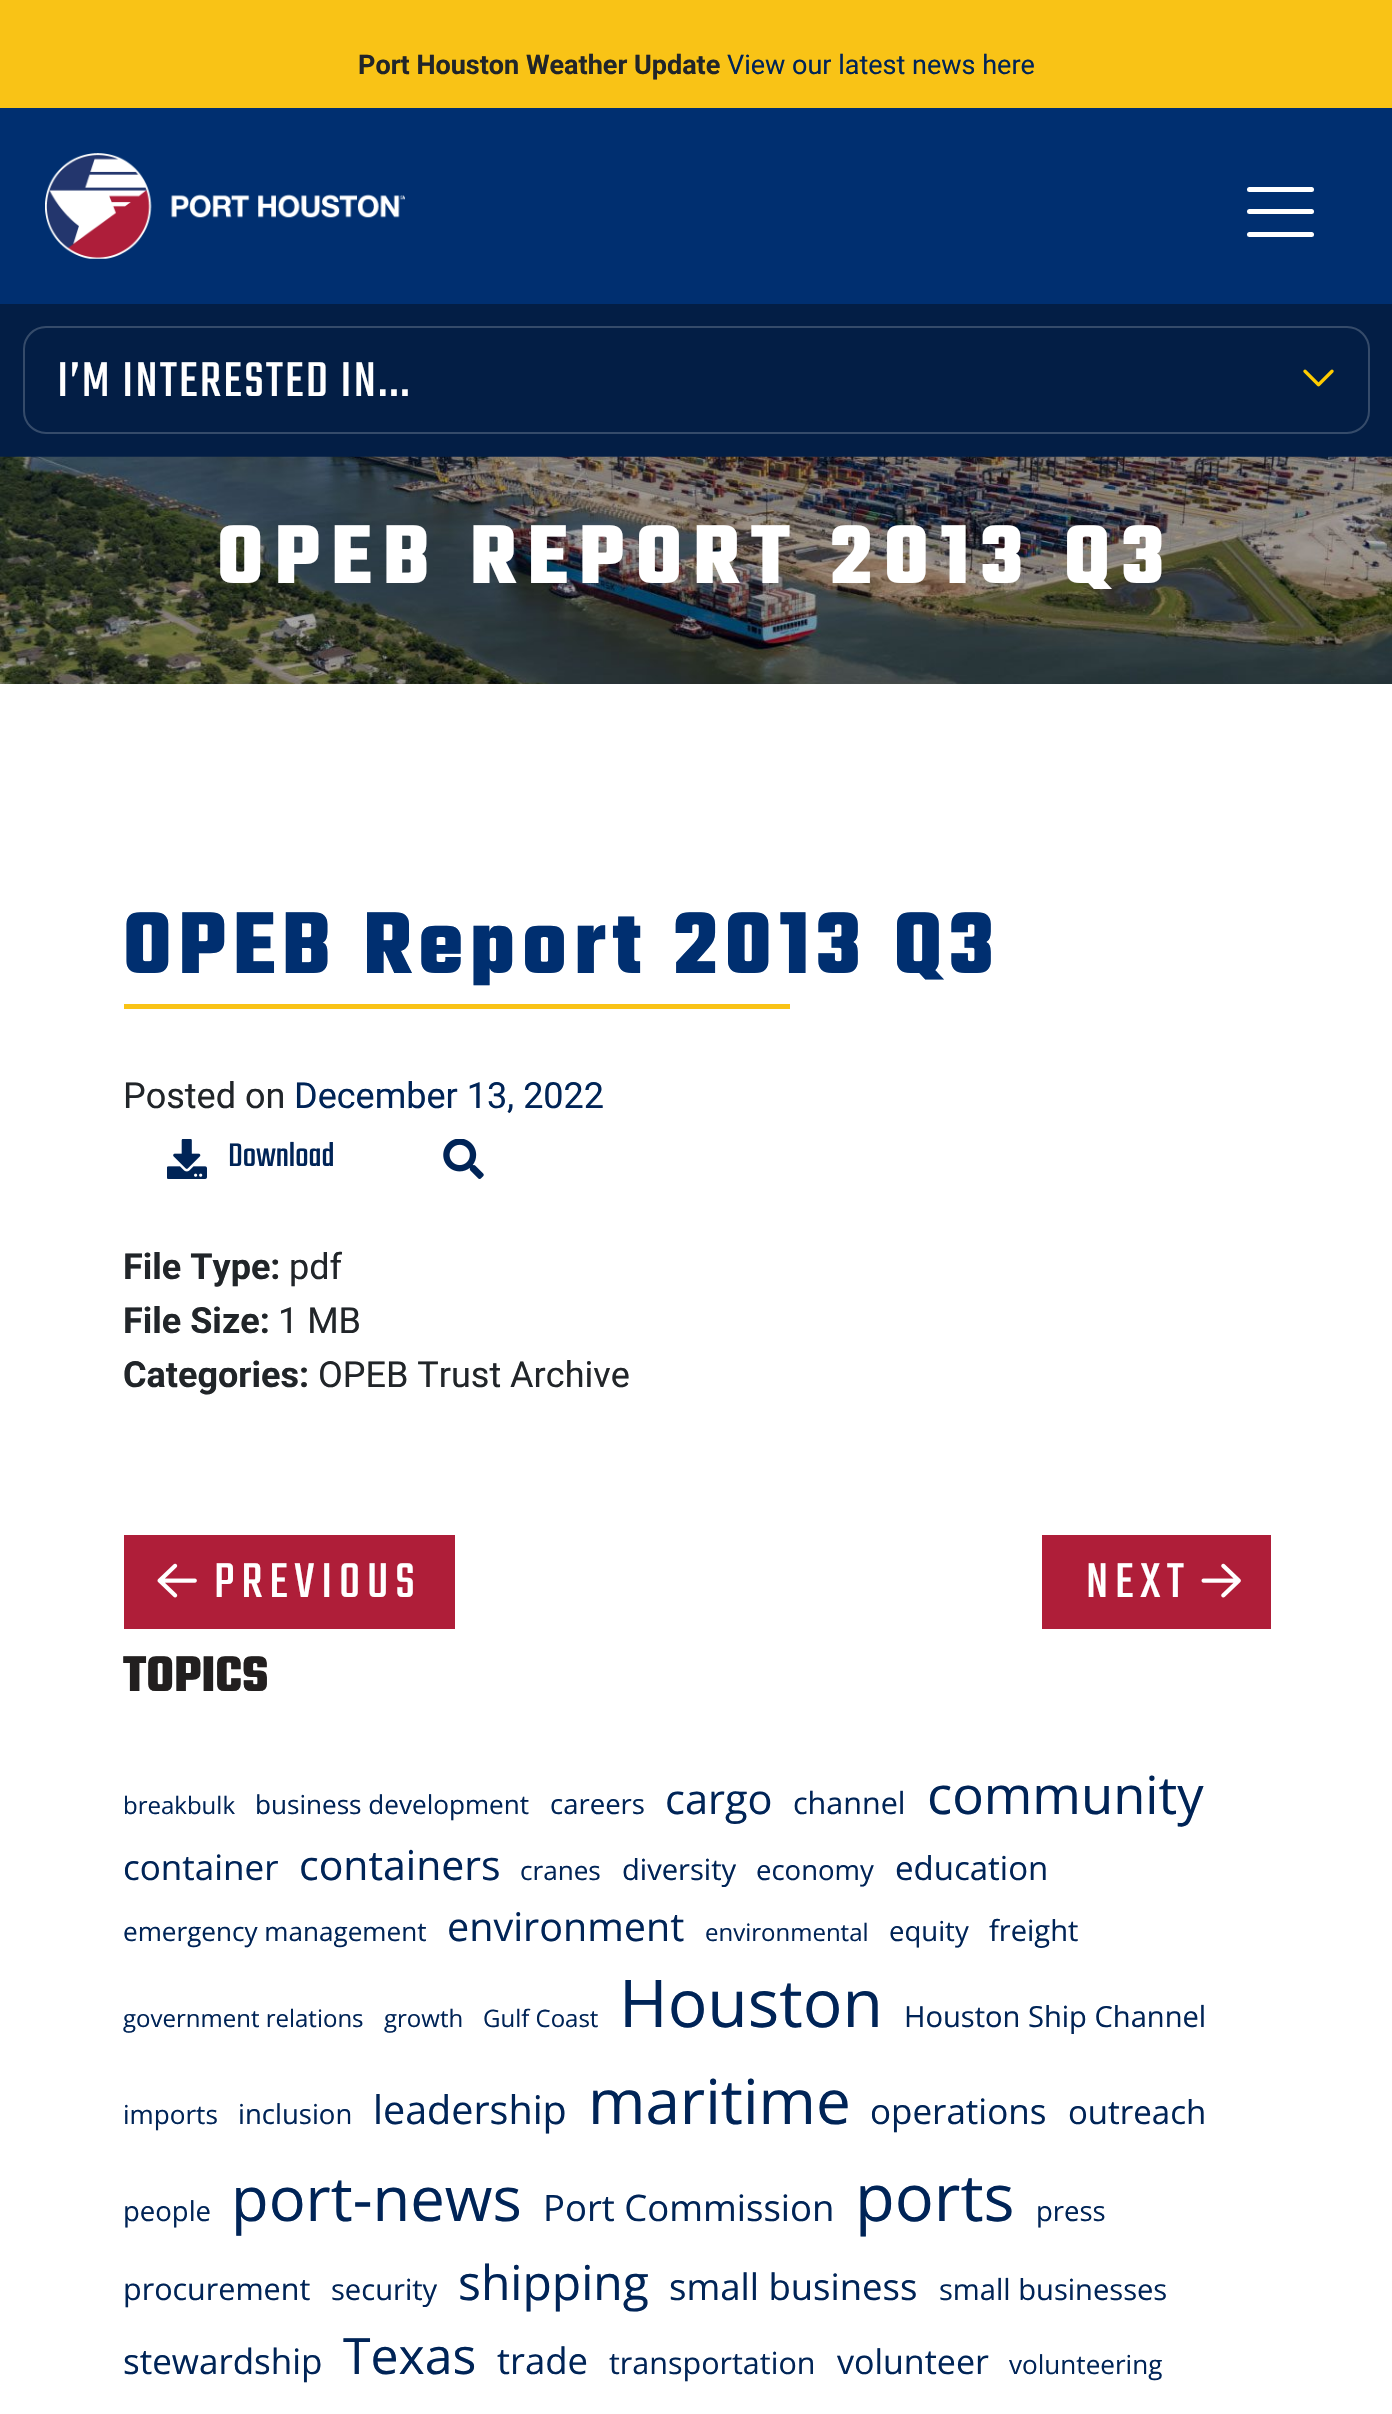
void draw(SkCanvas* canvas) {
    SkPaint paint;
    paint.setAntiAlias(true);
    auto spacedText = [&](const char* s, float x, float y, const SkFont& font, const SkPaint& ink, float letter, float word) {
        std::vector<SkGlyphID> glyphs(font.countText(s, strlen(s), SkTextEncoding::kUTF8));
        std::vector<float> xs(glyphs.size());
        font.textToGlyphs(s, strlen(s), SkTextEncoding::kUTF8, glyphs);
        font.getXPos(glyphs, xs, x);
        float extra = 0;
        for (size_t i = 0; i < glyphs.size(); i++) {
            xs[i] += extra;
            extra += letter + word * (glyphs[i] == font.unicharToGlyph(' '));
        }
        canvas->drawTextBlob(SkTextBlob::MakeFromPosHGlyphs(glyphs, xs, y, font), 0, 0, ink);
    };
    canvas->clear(0xFFFFFFFF);
    paint.setColor(0xFFF9C316);
    canvas->drawRect(SkRect::MakeXYWH(0, 0, 1392, 108), paint);
    SkFont font1(fontMgr->matchFamilyStyle("Roboto", SkFontStyle::Bold()), 27);
    font1.setSubpixel(true);
    paint.setColor(0xFF212529);
    canvas->drawString("Port Houston Weather Update", 358, 74, font1, paint);
    SkFont font2(fontMgr->matchFamilyStyle("Roboto", SkFontStyle::Normal()), 27);
    font2.setSubpixel(true);
    paint.setColor(0xFF002457);
    canvas->drawString("View our latest news here", 727, 74, font2, paint);
    paint.setColor(0xFF031E45);
    canvas->drawRect(SkRect::MakeXYWH(0, 304, 1392, 153), paint);
    paint.setColor(0xFF002F70);
    canvas->drawRect(SkRect::MakeXYWH(0, 108, 1392, 196), paint);
    canvas->drawImageRect(SkImages::DeferredFromEncodedData(SkData::MakeFromFileName("img1.png")), SkRect::MakeXYWH(45, 153, 360, 106), SkSamplingOptions());
    paint.setColor(0xFFFFFFFF);
    canvas->drawRoundRect(SkRect::MakeXYWH(1247, 209, 67, 5), 2.5f, 2.5f, paint);
    canvas->drawRoundRect(SkRect::MakeXYWH(1247, 187, 67, 5), 2.5f, 2.5f, paint);
    canvas->drawRoundRect(SkRect::MakeXYWH(1247, 232, 67, 5), 2.5f, 2.5f, paint);
    paint.setStyle(SkPaint::kStroke_Style);
    paint.setStrokeWidth(2);
    paint.setColor(0xFF354B6A);
    canvas->drawRoundRect(SkRect::MakeXYWH(24, 327, 1345, 106), 22, 22, paint);
    SkFont font3(fontMgr->matchFamilyStyle("Teko", SkFontStyle::Normal()), 54);
    font3.setSubpixel(true);
    paint.setStyle(SkPaint::kFill_Style);
    paint.setColor(0xFFFFFFFF);
    spacedText("I’M INTERESTED IN...", 57, 396, font3, paint, 2.25f, 0);
    canvas->drawImageRect(SkImages::DeferredFromEncodedData(SkData::MakeFromFileName("img2.png")), SkRect::MakeXYWH(1303, 369, 31, 18), SkSamplingOptions());
    canvas->drawImageRect(SkImages::DeferredFromEncodedData(SkData::MakeFromFileName("img3.png")), SkRect::MakeXYWH(0, 456, 1392, 228), SkSamplingOptions());
    SkFont font4(fontMgr->matchFamilyStyle("Teko", SkFontStyle(300, SkFontStyle::kNormal_Width, SkFontStyle::kUpright_Slant)), 90);
    font4.setSubpixel(true);
    spacedText("OPEB REPORT 2013 Q3", 217, 583, font4, paint, 11.25f, 0);
    SkFont font5(fontMgr->matchFamilyStyle("Teko", SkFontStyle(300, SkFontStyle::kNormal_Width, SkFontStyle::kUpright_Slant)), 94.5f);
    font5.setSubpixel(true);
    paint.setColor(0xFF002F70);
    spacedText("OPEB Report 2013 Q3", 123, 973, font5, paint, 6.75f, 0);
    paint.setColor(0xFFF9C316);
    canvas->drawRect(SkRect::MakeXYWH(124, 1004, 666, 5), paint);
    SkFont font6(fontMgr->matchFamilyStyle("Roboto", SkFontStyle::Normal()), 36);
    font6.setSubpixel(true);
    paint.setColor(0xFF212529);
    canvas->drawString("Posted on", 123, 1108, font6, paint);
    paint.setColor(0xFF002457);
    canvas->drawString("December 13, 2022", 294, 1108, font6, paint);
    canvas->drawImageRect(SkImages::DeferredFromEncodedData(SkData::MakeFromFileName("img4.png")), SkRect::MakeXYWH(167, 1139, 40, 40), SkSamplingOptions());
    SkFont font7(fontMgr->matchFamilyStyle("Teko", SkFontStyle::Normal()), 36);
    font7.setSubpixel(true);
    canvas->drawString("Download", 228, 1166, font7, paint);
    canvas->drawImageRect(SkImages::DeferredFromEncodedData(SkData::MakeFromFileName("img5.png")), SkRect::MakeXYWH(443, 1139, 41, 40), SkSamplingOptions());
    SkFont font8(fontMgr->matchFamilyStyle("Roboto", SkFontStyle::Bold()), 36);
    font8.setSubpixel(true);
    paint.setColor(0xFF212529);
    canvas->drawString("File Type:", 123, 1279, font8, paint);
    canvas->drawString("pdf", 289, 1279, font6, paint);
    canvas->drawString("File Size:", 123, 1333, font8, paint);
    canvas->drawString("1 MB", 278, 1333, font6, paint);
    canvas->drawString("Categories:", 123, 1387, font8, paint);
    canvas->drawString("OPEB Trust Archive", 318, 1387, font6, paint);
    paint.setColor(0xFFAF1E39);
    canvas->drawRect(SkRect::MakeXYWH(124, 1535, 331, 94), paint);
    canvas->drawImageRect(SkImages::DeferredFromEncodedData(SkData::MakeFromFileName("img6.png")), SkRect::MakeXYWH(157, 1563, 40, 35), SkSamplingOptions());
    paint.setColor(0xFFFFFFFF);
    spacedText("PREVIOUS", 214, 1597, font3, paint, 6.75f, 0);
    paint.setColor(0xFFAF1E39);
    canvas->drawRect(SkRect::MakeXYWH(1042, 1535, 229, 94), paint);
    paint.setColor(0xFFFFFFFF);
    spacedText("NEXT", 1086, 1597, font3, paint, 6.75f, 0);
    canvas->drawImageRect(SkImages::DeferredFromEncodedData(SkData::MakeFromFileName("img7.png")), SkRect::MakeXYWH(1201, 1563, 40, 35), SkSamplingOptions());
    SkFont font9(fontMgr->matchFamilyStyle("Teko", SkFontStyle(300, SkFontStyle::kNormal_Width, SkFontStyle::kUpright_Slant)), 54);
    font9.setSubpixel(true);
    paint.setColor(0xFF221F1F);
    canvas->drawString("TOPICS", 123, 1691, font9, paint);
    SkFont font10(fontMgr->matchFamilyStyle("Open Sans", SkFontStyle::Normal()), 24);
    font10.setSubpixel(true);
    paint.setColor(0xFF002457);
    canvas->drawString("breakbulk", 123, 1814, font10, paint);
    SkFont font11(fontMgr->matchFamilyStyle("Open Sans", SkFontStyle::Normal()), 26.1f);
    font11.setSubpixel(true);
    canvas->drawString("business development", 255, 1814, font11, paint);
    SkFont font12(fontMgr->matchFamilyStyle("Open Sans", SkFontStyle::Normal()), 27.5f);
    font12.setSubpixel(true);
    canvas->drawString("careers", 550, 1814, font12, paint);
    SkFont font13(fontMgr->matchFamilyStyle("Open Sans", SkFontStyle::Normal()), 41.5f);
    font13.setSubpixel(true);
    canvas->drawString("cargo", 665, 1814, font13, paint);
    SkFont font14(fontMgr->matchFamilyStyle("Open Sans", SkFontStyle::Normal()), 30.5f);
    font14.setSubpixel(true);
    canvas->drawString("channel", 793, 1814, font14, paint);
    SkFont font15(fontMgr->matchFamilyStyle("Open Sans", SkFontStyle::Normal()), 52.5f);
    font15.setSubpixel(true);
    canvas->drawString("community", 927, 1814, font15, paint);
    SkFont font16(fontMgr->matchFamilyStyle("Open Sans", SkFontStyle::Normal()), 35);
    font16.setSubpixel(true);
    canvas->drawString("container", 123, 1880, font16, paint);
    SkFont font17(fontMgr->matchFamilyStyle("Open Sans", SkFontStyle::Normal()), 41);
    font17.setSubpixel(true);
    canvas->drawString("containers", 299, 1880, font17, paint);
    canvas->drawString("cranes", 520, 1880, font11, paint);
    SkFont font18(fontMgr->matchFamilyStyle("Open Sans", SkFontStyle::Normal()), 29.1f);
    font18.setSubpixel(true);
    canvas->drawString("diversity", 622, 1880, font18, paint);
    canvas->drawString("economy", 756, 1880, font12, paint);
    SkFont font19(fontMgr->matchFamilyStyle("Open Sans", SkFontStyle::Normal()), 33);
    font19.setSubpixel(true);
    canvas->drawString("education", 895, 1880, font19, paint);
    canvas->drawString("emergency management", 123, 1941, font11, paint);
    SkFont font20(fontMgr->matchFamilyStyle("Open Sans", SkFontStyle::Normal()), 39.5f);
    font20.setSubpixel(true);
    canvas->drawString("environment", 447, 1941, font20, paint);
    canvas->drawString("environmental", 705, 1941, font10, paint);
    canvas->drawString("equity", 889, 1941, font12, paint);
    canvas->drawString("freight", 989, 1941, font18, paint);
    canvas->drawString("government relations", 123, 2027, font10, paint);
    canvas->drawString("growth", 384, 2027, font10, paint);
    canvas->drawString("Gulf Coast", 483, 2027, font10, paint);
    SkFont font21(fontMgr->matchFamilyStyle("Open Sans", SkFontStyle::Normal()), 66);
    font21.setSubpixel(true);
    canvas->drawString("Houston", 619, 2027, font21, paint);
    canvas->drawString("Houston Ship Channel", 904, 2027, font18, paint);
    canvas->drawString("imports", 123, 2124, font11, paint);
    canvas->drawString("inclusion", 238, 2124, font12, paint);
    canvas->drawString("leadership", 373, 2124, font20, paint);
    SkFont font22(fontMgr->matchFamilyStyle("Open Sans", SkFontStyle::Normal()), 62);
    font22.setSubpixel(true);
    canvas->drawString("maritime", 588, 2124, font22, paint);
    canvas->drawString("operations", 870, 2124, font16, paint);
    canvas->drawString("outreach", 1068, 2124, font19, paint);
    canvas->drawString("people", 123, 2221, font12, paint);
    SkFont font23(fontMgr->matchFamilyStyle("Open Sans", SkFontStyle::Normal()), 61.5f);
    font23.setSubpixel(true);
    canvas->drawString("port-news", 231, 2221, font23, paint);
    SkFont font24(fontMgr->matchFamilyStyle("Open Sans", SkFontStyle::Normal()), 36.5f);
    font24.setSubpixel(true);
    canvas->drawString("Port Commission", 543, 2221, font24, paint);
    SkFont font25(fontMgr->matchFamilyStyle("Open Sans", SkFontStyle::Normal()), 65);
    font25.setSubpixel(true);
    canvas->drawString("ports", 855, 2221, font25, paint);
    canvas->drawString("press", 1036, 2221, font12, paint);
    canvas->drawString("procurement", 123, 2300, font14, paint);
    canvas->drawString("security", 331, 2300, font18, paint);
    SkFont font26(fontMgr->matchFamilyStyle("Open Sans", SkFontStyle::Normal()), 48);
    font26.setSubpixel(true);
    canvas->drawString("shipping", 458, 2300, font26, paint);
    canvas->drawString("small business", 669, 2300, font24, paint);
    canvas->drawString("small businesses", 939, 2300, font18, paint);
    canvas->drawString("stewardship", 123, 2374, font16, paint);
    SkFont font27(fontMgr->matchFamilyStyle("Open Sans", SkFontStyle::Normal()), 50);
    font27.setSubpixel(true);
    canvas->drawString("Texas", 343, 2374, font27, paint);
    canvas->drawString("trade", 497, 2374, font24, paint);
    canvas->drawString("transportation", 609, 2374, font14, paint);
    SkFont font28(fontMgr->matchFamilyStyle("Open Sans", SkFontStyle::Normal()), 34);
    font28.setSubpixel(true);
    canvas->drawString("volunteer", 837, 2374, font28, paint);
    canvas->drawString("volunteering", 1009, 2374, font11, paint);
}
